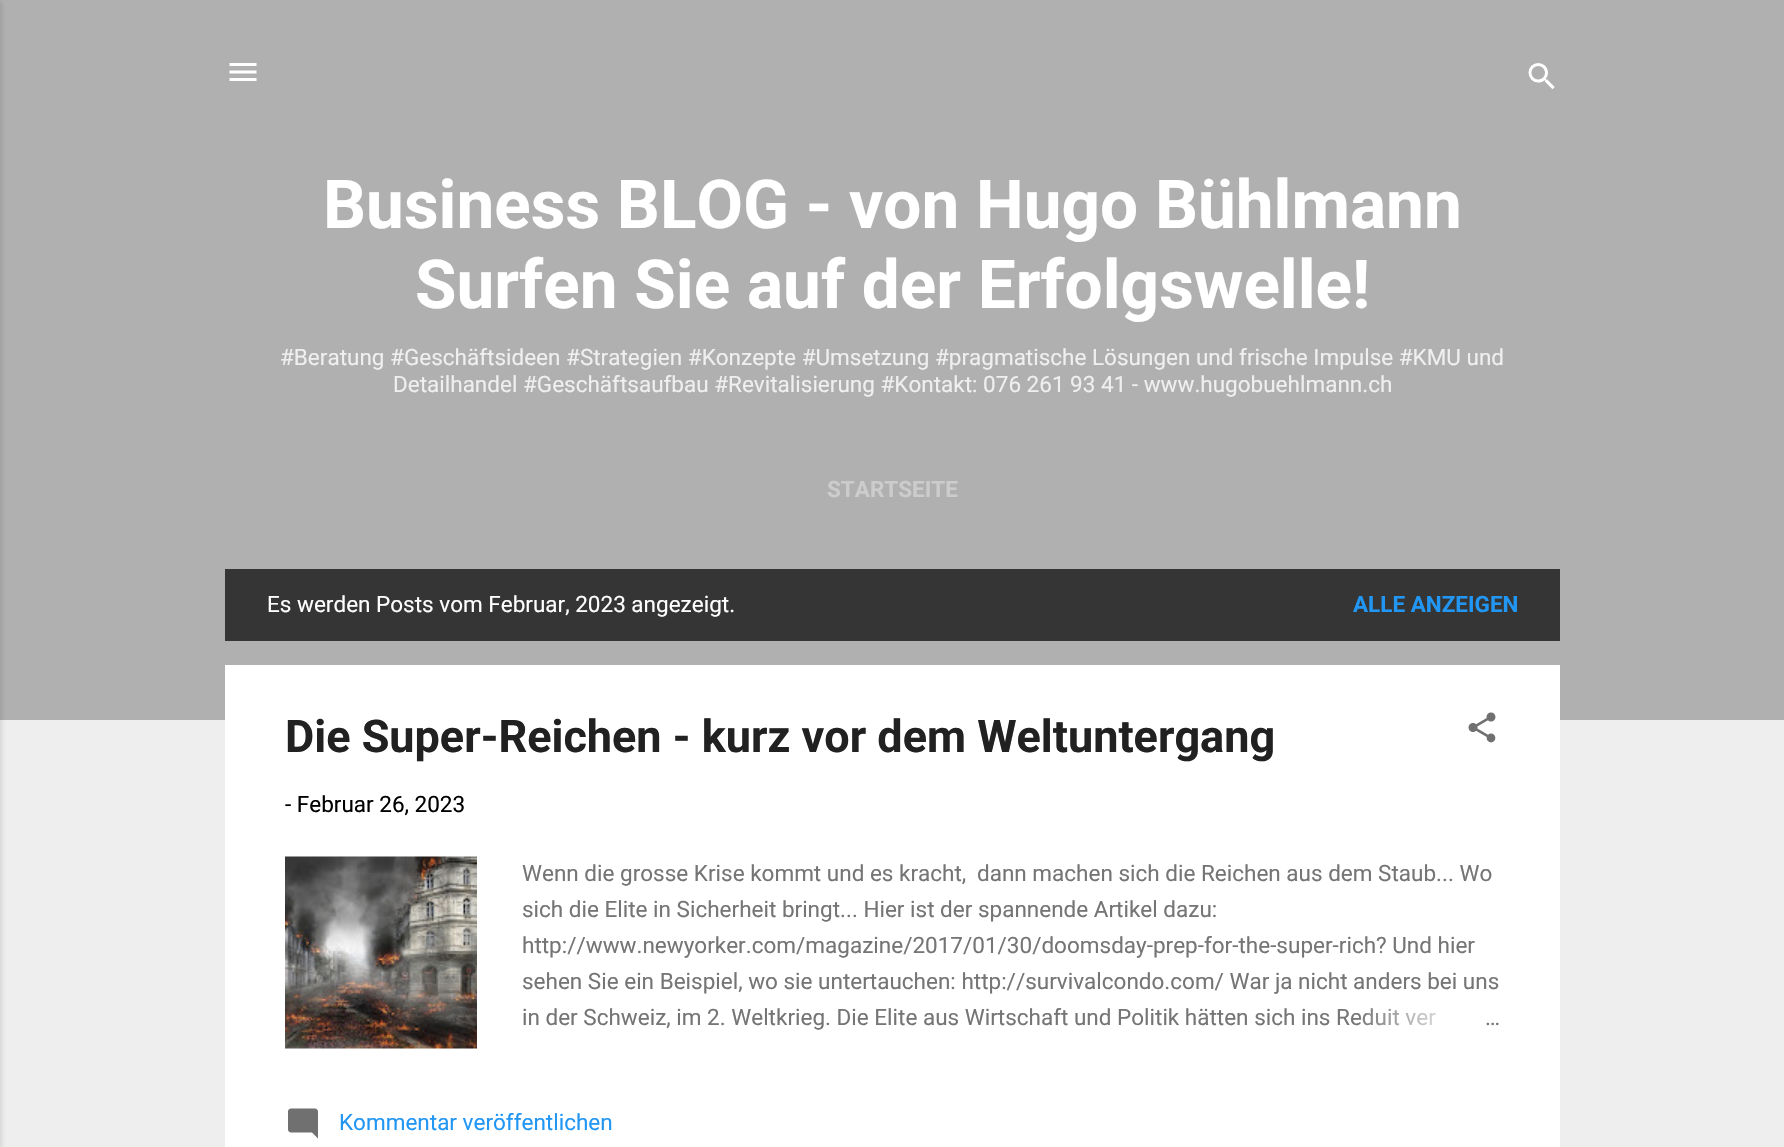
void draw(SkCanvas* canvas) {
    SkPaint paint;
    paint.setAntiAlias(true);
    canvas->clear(0xFFEEEEEE);
    paint.setColor(0xFFB0B0B0);
    canvas->drawRect(SkRect::MakeXYWH(0, 0, 1784, 720), paint);
    paint.setColor(0x1A000000);
    paint.setMaskFilter(SkMaskFilter::MakeBlur(kNormal_SkBlurStyle, 2));
    canvas->drawRect(SkRect::MakeXYWH(-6, 2, 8, 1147), paint);
    paint.setMaskFilter(nullptr);
    canvas->drawImageRect(SkImages::DeferredFromEncodedData(SkData::MakeFromFileName("img1.png")), SkRect::MakeXYWH(229, 63, 28, 18), SkSamplingOptions());
    canvas->drawImageRect(SkImages::DeferredFromEncodedData(SkData::MakeFromFileName("img2.png")), SkRect::MakeXYWH(1528, 63, 27, 27), SkSamplingOptions());
    SkFont font1(fontMgr->matchFamilyStyle("Roboto", SkFontStyle::Bold()), 67.5f);
    font1.setSubpixel(true);
    paint.setColor(0xFFFFFFFF);
    canvas->drawString("Business BLOG - von Hugo Bühlmann", 323, 228, font1, paint);
    canvas->drawString("Surfen Sie auf der Erfolgswelle!", 415, 308, font1, paint);
    SkFont font2(fontMgr->matchFamilyStyle("Roboto", SkFontStyle::Normal()), 22.5f);
    font2.setSubpixel(true);
    paint.setColor(0xFFEFEFEF);
    canvas->drawString("#Beratung #Geschäftsideen #Strategien #Konzepte #Umsetzung #pragmatische Lösungen und frische Impulse #KMU und", 280, 365, font2, paint);
    canvas->drawString("Detailhandel #Geschäftsaufbau #Revitalisierung #Kontakt: 076 261 93 41 - www.hugobuehlmann.ch", 393, 392, font2, paint);
    SkFont font3(fontMgr->matchFamilyStyle("Roboto", SkFontStyle::Bold()), 22.5f);
    font3.setSubpixel(true);
    paint.setColor(0xFFCCCCCC);
    canvas->drawString("STARTSEITE", 827, 497, font3, paint);
    paint.setColor(0xFF353535);
    canvas->drawRect(SkRect::MakeXYWH(225, 569, 1335, 72), paint);
    paint.setColor(0xFFFFFFFF);
    canvas->drawString("Es werden Posts vom Februar, 2023 angezeigt.", 267, 612, font2, paint);
    paint.setColor(0xFF2196F3);
    canvas->drawString("ALLE ANZEIGEN", 1353, 612, font3, paint);
    paint.setColor(0xFFFFFFFF);
    canvas->drawRect(SkRect::MakeXYWH(225, 665, 1335, 482), paint);
    SkFont font4(fontMgr->matchFamilyStyle("Roboto", SkFontStyle::Bold()), 45);
    font4.setSubpixel(true);
    paint.setColor(0xFF212121);
    canvas->drawString("Die Super-Reichen - kurz vor dem Weltuntergang", 285, 752, font4, paint);
    canvas->drawImageRect(SkImages::DeferredFromEncodedData(SkData::MakeFromFileName("img3.png")), SkRect::MakeXYWH(1468, 712, 28, 31), SkSamplingOptions());
    paint.setColor(0xFF000000);
    canvas->drawString("- Februar 26, 2023", 285, 812, font2, paint);
    canvas->drawImageRect(SkImages::DeferredFromEncodedData(SkData::MakeFromFileName("img4.png")), SkRect::MakeXYWH(285, 856, 192, 193), SkSamplingOptions());
    paint.setColor(0xFF757575);
    canvas->drawString("Wenn die grosse Krise kommt und es kracht,", 522, 881, font2, paint);
    canvas->drawString("dann machen sich die Reichen aus dem Staub... Wo", 977, 881, font2, paint);
    canvas->drawString("sich die Elite in Sicherheit bringt... Hier ist der spannende Artikel dazu:", 522, 917, font2, paint);
    canvas->drawString("http://www.newyorker.com/magazine/2017/01/30/doomsday-prep-for-the-super-rich? Und hier", 522, 953, font2, paint);
    canvas->drawString("sehen Sie ein Beispiel, wo sie untertauchen: http://survivalcondo.com/ War ja nicht anders bei uns", 522, 989, font2, paint);
    canvas->drawString("in der Schweiz, im 2. Weltkrieg. Die Elite aus Wirtschaft und Politik hätten sich ins Reduit ver", 522, 1025, font2, paint);
    {
        const SkColor colors[] = {0xFFFFFFFF, 0xFFFFFFFF, 0x00FFFFFF};
        const float stops[] = {0, 0.2f, 1};
        const SkPoint ends[] = {{1500, 1019}, {1356, 1019}};
        paint.setShader(SkGradientShader::MakeLinear(ends, colors, stops, 3, SkTileMode::kClamp));
        paint.setAlpha(255);
    }
    canvas->drawRect(SkRect::MakeXYWH(1358, 1008, 78, 18), paint);
    paint.setShader(nullptr);
    paint.setColor(0xFF757575);
    canvas->drawString("…", 1485, 1025, font2, paint);
    canvas->drawImageRect(SkImages::DeferredFromEncodedData(SkData::MakeFromFileName("img5.png")), SkRect::MakeXYWH(288, 1108, 30, 31), SkSamplingOptions());
    paint.setColor(0xFF2196F3);
    canvas->drawString("Kommentar veröffentlichen", 339, 1130, font2, paint);
}
